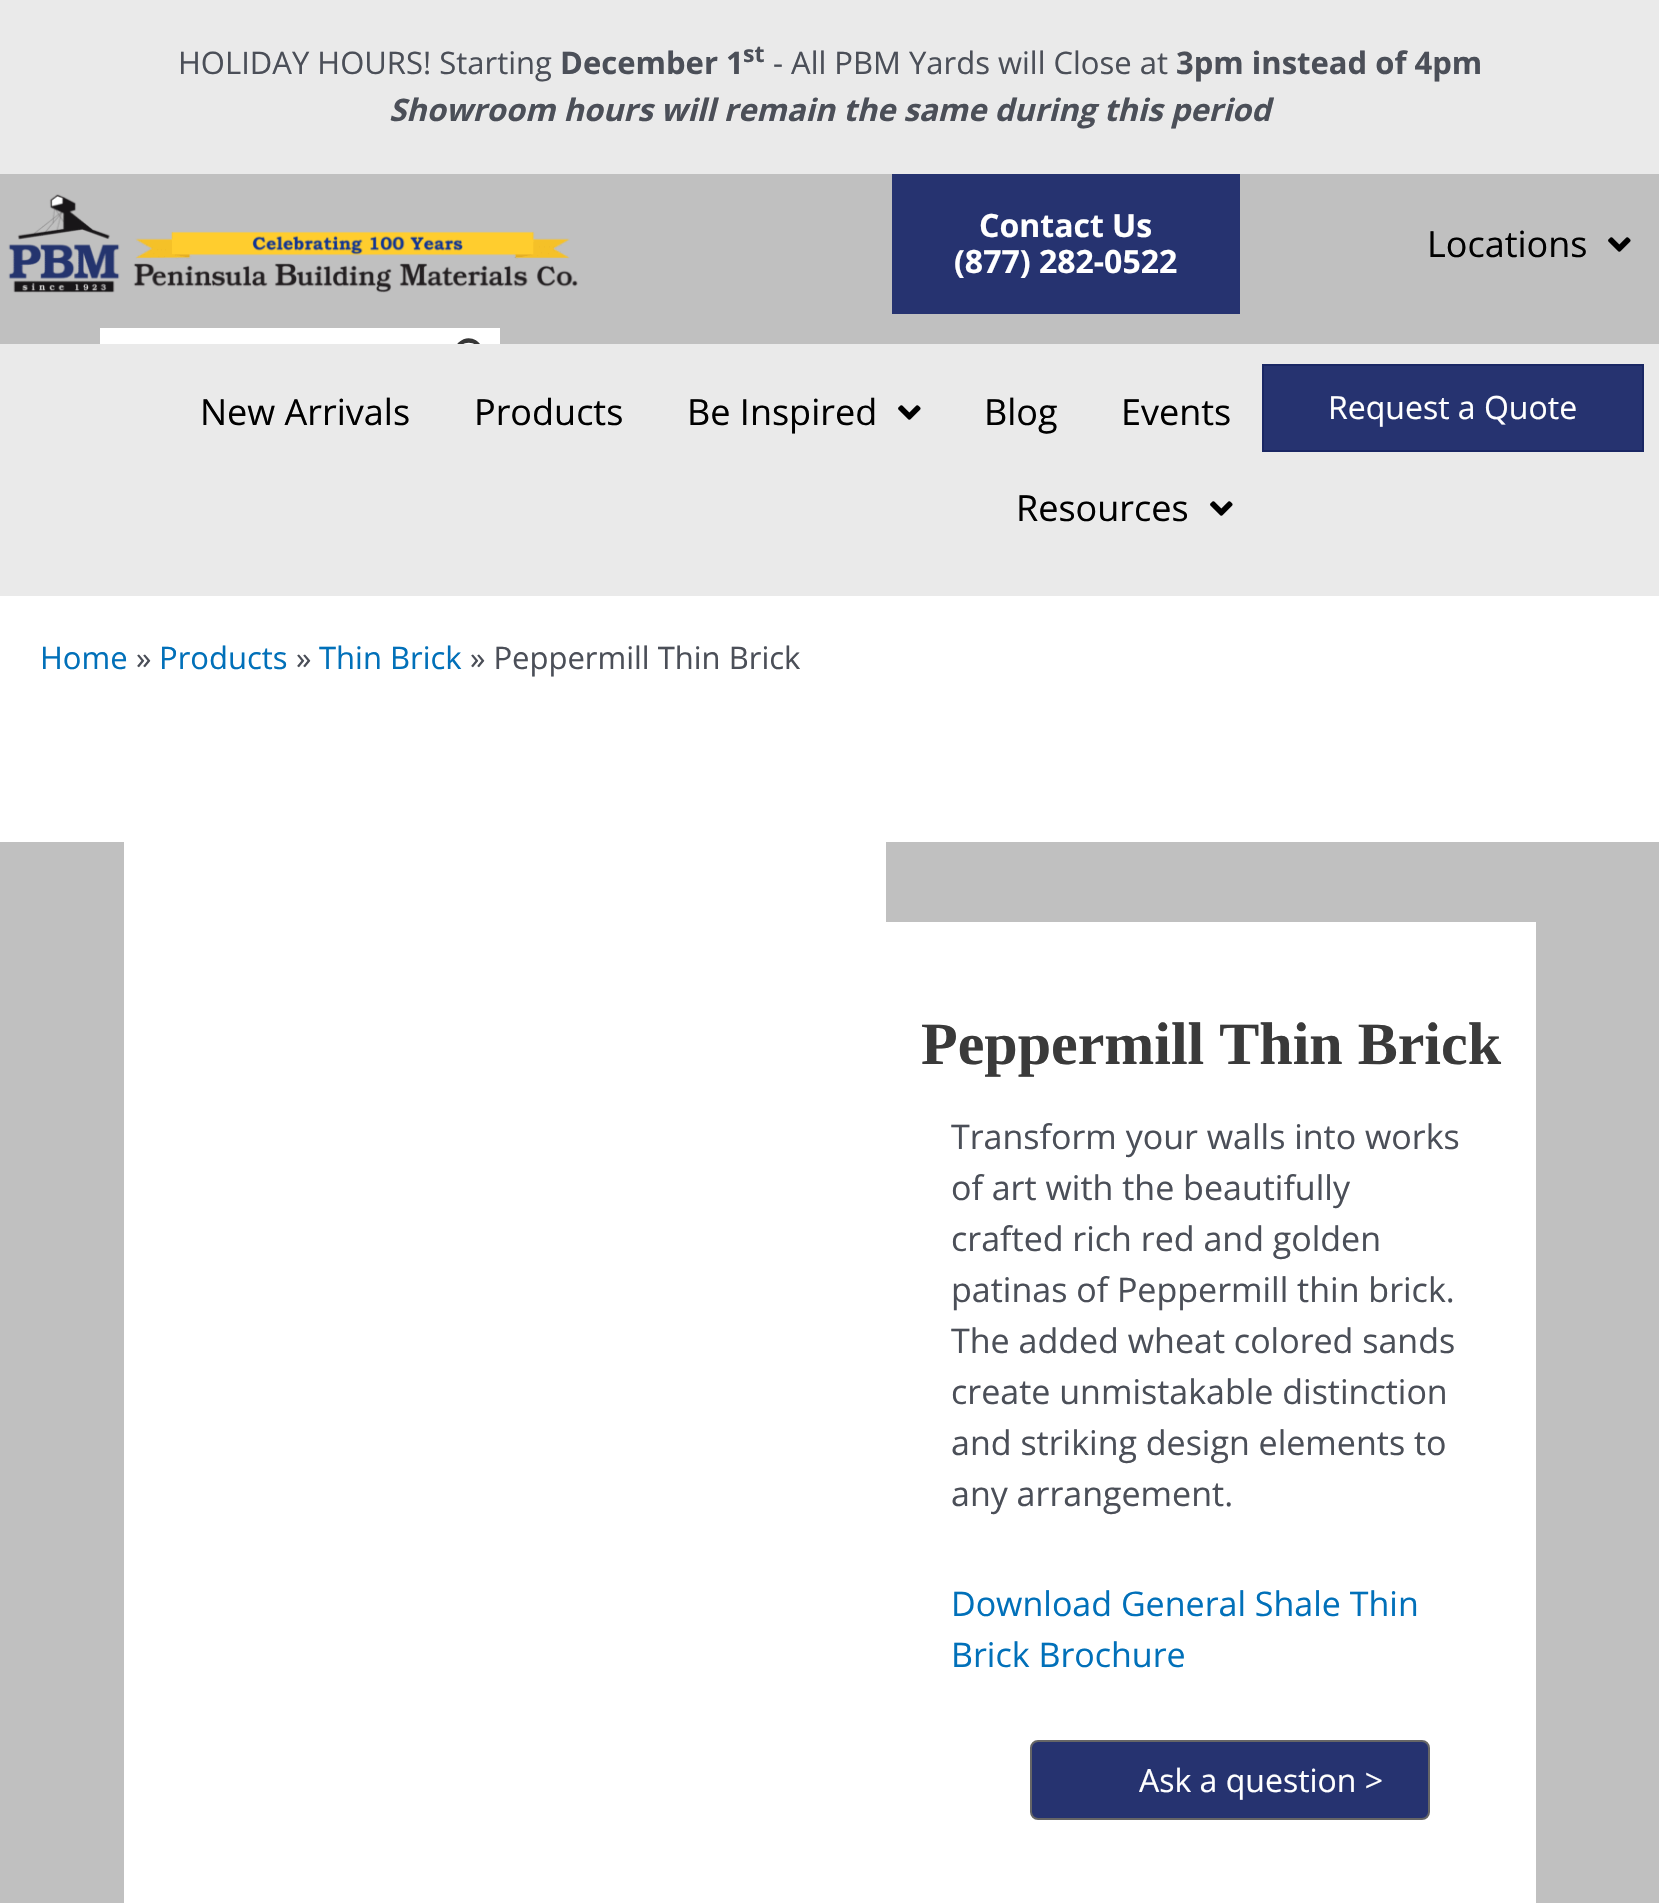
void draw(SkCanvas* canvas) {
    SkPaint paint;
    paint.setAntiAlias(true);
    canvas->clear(0xFFFFFFFF);
    paint.setColor(0xFFEAEAEA);
    canvas->drawRect(SkRect::MakeXYWH(0, 0, 1659, 174), paint);
    SkFont font1(fontMgr->matchFamilyStyle("Open Sans", SkFontStyle::Normal()), 31);
    font1.setSubpixel(true);
    paint.setColor(0xFF4B4F58);
    canvas->drawString("HOLIDAY HOURS! Starting", 178, 74, font1, paint);
    SkFont font2(fontMgr->matchFamilyStyle("Open Sans", SkFontStyle::Bold()), 31);
    font2.setSubpixel(true);
    canvas->drawString("December 1", 560, 74, font2, paint);
    SkFont font3(fontMgr->matchFamilyStyle("Open Sans", SkFontStyle::Bold()), 23);
    font3.setSubpixel(true);
    canvas->drawString("st", 743, 62, font3, paint);
    canvas->drawString("- All PBM Yards will Close at", 773, 74, font1, paint);
    canvas->drawString("3pm instead of 4pm", 1176, 74, font2, paint);
    SkFont font4(fontMgr->matchFamilyStyle("Open Sans", SkFontStyle::BoldItalic()), 31);
    font4.setSubpixel(true);
    canvas->drawString("Showroom hours will remain the same during this period", 389, 121, font4, paint);
    paint.setColor(0xFFC0C0C0);
    canvas->drawRect(SkRect::MakeXYWH(0, 174, 1659, 170), paint);
    canvas->drawImageRect(SkImages::DeferredFromEncodedData(SkData::MakeFromFileName("img1.png")), SkRect::MakeXYWH(8, 194, 570, 99), SkSamplingOptions());
    paint.setColor(0xFF263370);
    canvas->drawRect(SkRect::MakeXYWH(892, 174, 348, 140), paint);
    SkFont font5(fontMgr->matchFamilyStyle("Open Sans", SkFontStyle::Bold()), 32);
    font5.setSubpixel(true);
    paint.setColor(0xFFFFFFFF);
    canvas->drawString("Contact Us", 979, 237, font5, paint);
    canvas->drawString("(877) 282-0522", 954, 273, font5, paint);
    SkFont font6(fontMgr->matchFamilyStyle("Open Sans", SkFontStyle::Normal()), 36);
    font6.setSubpixel(true);
    paint.setColor(0xFF000000);
    canvas->drawString("Locations", 1427, 257, font6, paint);
    canvas->drawImageRect(SkImages::DeferredFromEncodedData(SkData::MakeFromFileName("img2.png")), SkRect::MakeXYWH(1608, 237, 23, 15), SkSamplingOptions());
    paint.setColor(0xFFFFFFFF);
    canvas->drawRect(SkRect::MakeXYWH(100, 328, 400, 16), paint);
    paint.setColor(0xFF363636);
    canvas->drawPath(SkPathBuilder().moveTo(489.5f, 370).lineTo(480.5f, 361).cubicTo(490.5f, 347, 471.5f, 330, 458.5f, 342.5f).cubicTo(446, 355, 463, 374, 477, 364.5f).lineTo(486, 373.5f).close().moveTo(458.5f, 352.5f).cubicTo(458.5f, 339.5f, 479, 339.5f, 479, 352.5f).cubicTo(479, 366, 458.5f, 366, 458.5f, 352.5f).close().detach(), paint);
    paint.setColor(0xFFEAEAEA);
    canvas->drawRect(SkRect::MakeXYWH(0, 344, 1659, 252), paint);
    paint.setColor(0xFF000000);
    canvas->drawString("New Arrivals", 200, 425, font6, paint);
    canvas->drawString("Products", 474, 425, font6, paint);
    canvas->drawString("Be Inspired", 687, 425, font6, paint);
    canvas->drawImageRect(SkImages::DeferredFromEncodedData(SkData::MakeFromFileName("img3.png")), SkRect::MakeXYWH(898, 405, 23, 15), SkSamplingOptions());
    canvas->drawString("Blog", 984, 425, font6, paint);
    canvas->drawString("Events", 1121, 425, font6, paint);
    canvas->drawString("Resources", 1016, 521, font6, paint);
    canvas->drawImageRect(SkImages::DeferredFromEncodedData(SkData::MakeFromFileName("img3.png")), SkRect::MakeXYWH(1210, 501, 23, 15), SkSamplingOptions());
    paint.setColor(0xFF263370);
    canvas->drawRect(SkRect::MakeXYWH(1263, 365, 380, 86), paint);
    paint.setStyle(SkPaint::kStroke_Style);
    paint.setStrokeWidth(2);
    paint.setColor(0xFF1A2764);
    canvas->drawRect(SkRect::MakeXYWH(1263, 365, 380, 86), paint);
    SkFont font7(fontMgr->matchFamilyStyle("Open Sans", SkFontStyle::Normal()), 32);
    font7.setSubpixel(true);
    paint.setStyle(SkPaint::kFill_Style);
    paint.setColor(0xFFFFFFFF);
    canvas->drawString("Request a Quote", 1328, 419, font7, paint);
    paint.setColor(0xFF0170B9);
    canvas->drawString("Home", 40, 669, font1, paint);
    paint.setColor(0xFF4B4F58);
    canvas->drawString("»", 136, 669, font1, paint);
    paint.setColor(0xFF0170B9);
    canvas->drawString("Products", 159, 669, font1, paint);
    paint.setColor(0xFF4B4F58);
    canvas->drawString("»", 296, 669, font1, paint);
    paint.setColor(0xFF0170B9);
    canvas->drawString("Thin Brick", 319, 669, font1, paint);
    paint.setColor(0xFF4B4F58);
    canvas->drawString("» Peppermill Thin Brick", 470, 669, font1, paint);
    paint.setColor(0xFFC0C0C0);
    canvas->drawRect(SkRect::MakeXYWH(0, 842, 1659, 1061), paint);
    paint.setColor(0xFFFFFFFF);
    canvas->drawRect(SkRect::MakeXYWH(124, 842, 762, 1061), paint);
    canvas->drawRect(SkRect::MakeXYWH(886, 922, 650, 981), paint);
    SkFont font8(fontMgr->matchFamilyStyle("Liberation Serif", SkFontStyle::Bold()), 60);
    font8.setSubpixel(true);
    paint.setColor(0xFF3A3A3A);
    canvas->drawString("Peppermill Thin Brick", 921, 1064, font8, paint);
    SkFont font9(fontMgr->matchFamilyStyle("Open Sans", SkFontStyle::Normal()), 34);
    font9.setSubpixel(true);
    paint.setColor(0xFF4B4F58);
    canvas->drawString("Transform your walls into works", 951, 1149, font9, paint);
    canvas->drawString("of art with the beautifully", 951, 1200, font9, paint);
    canvas->drawString("crafted rich red and golden", 951, 1251, font9, paint);
    canvas->drawString("patinas of Peppermill thin brick.", 951, 1302, font9, paint);
    canvas->drawString("The added wheat colored sands", 951, 1353, font9, paint);
    canvas->drawString("create unmistakable distinction", 951, 1404, font9, paint);
    canvas->drawString("and striking design elements to", 951, 1455, font9, paint);
    canvas->drawString("any arrangement.", 951, 1506, font9, paint);
    paint.setColor(0xFF0170B9);
    canvas->drawString("Download General Shale Thin", 951, 1616, font9, paint);
    canvas->drawString("Brick Brochure", 951, 1667, font9, paint);
    paint.setColor(0xFF263370);
    canvas->drawRoundRect(SkRect::MakeXYWH(1031, 1741, 398, 78), 7, 7, paint);
    paint.setStyle(SkPaint::kStroke_Style);
    paint.setColor(0xFF666666);
    canvas->drawRoundRect(SkRect::MakeXYWH(1031, 1741, 398, 78), 7, 7, paint);
    paint.setStyle(SkPaint::kFill_Style);
    paint.setColor(0xFFFFFFFF);
    canvas->drawString("Ask a question >", 1139, 1792, font7, paint);
}
